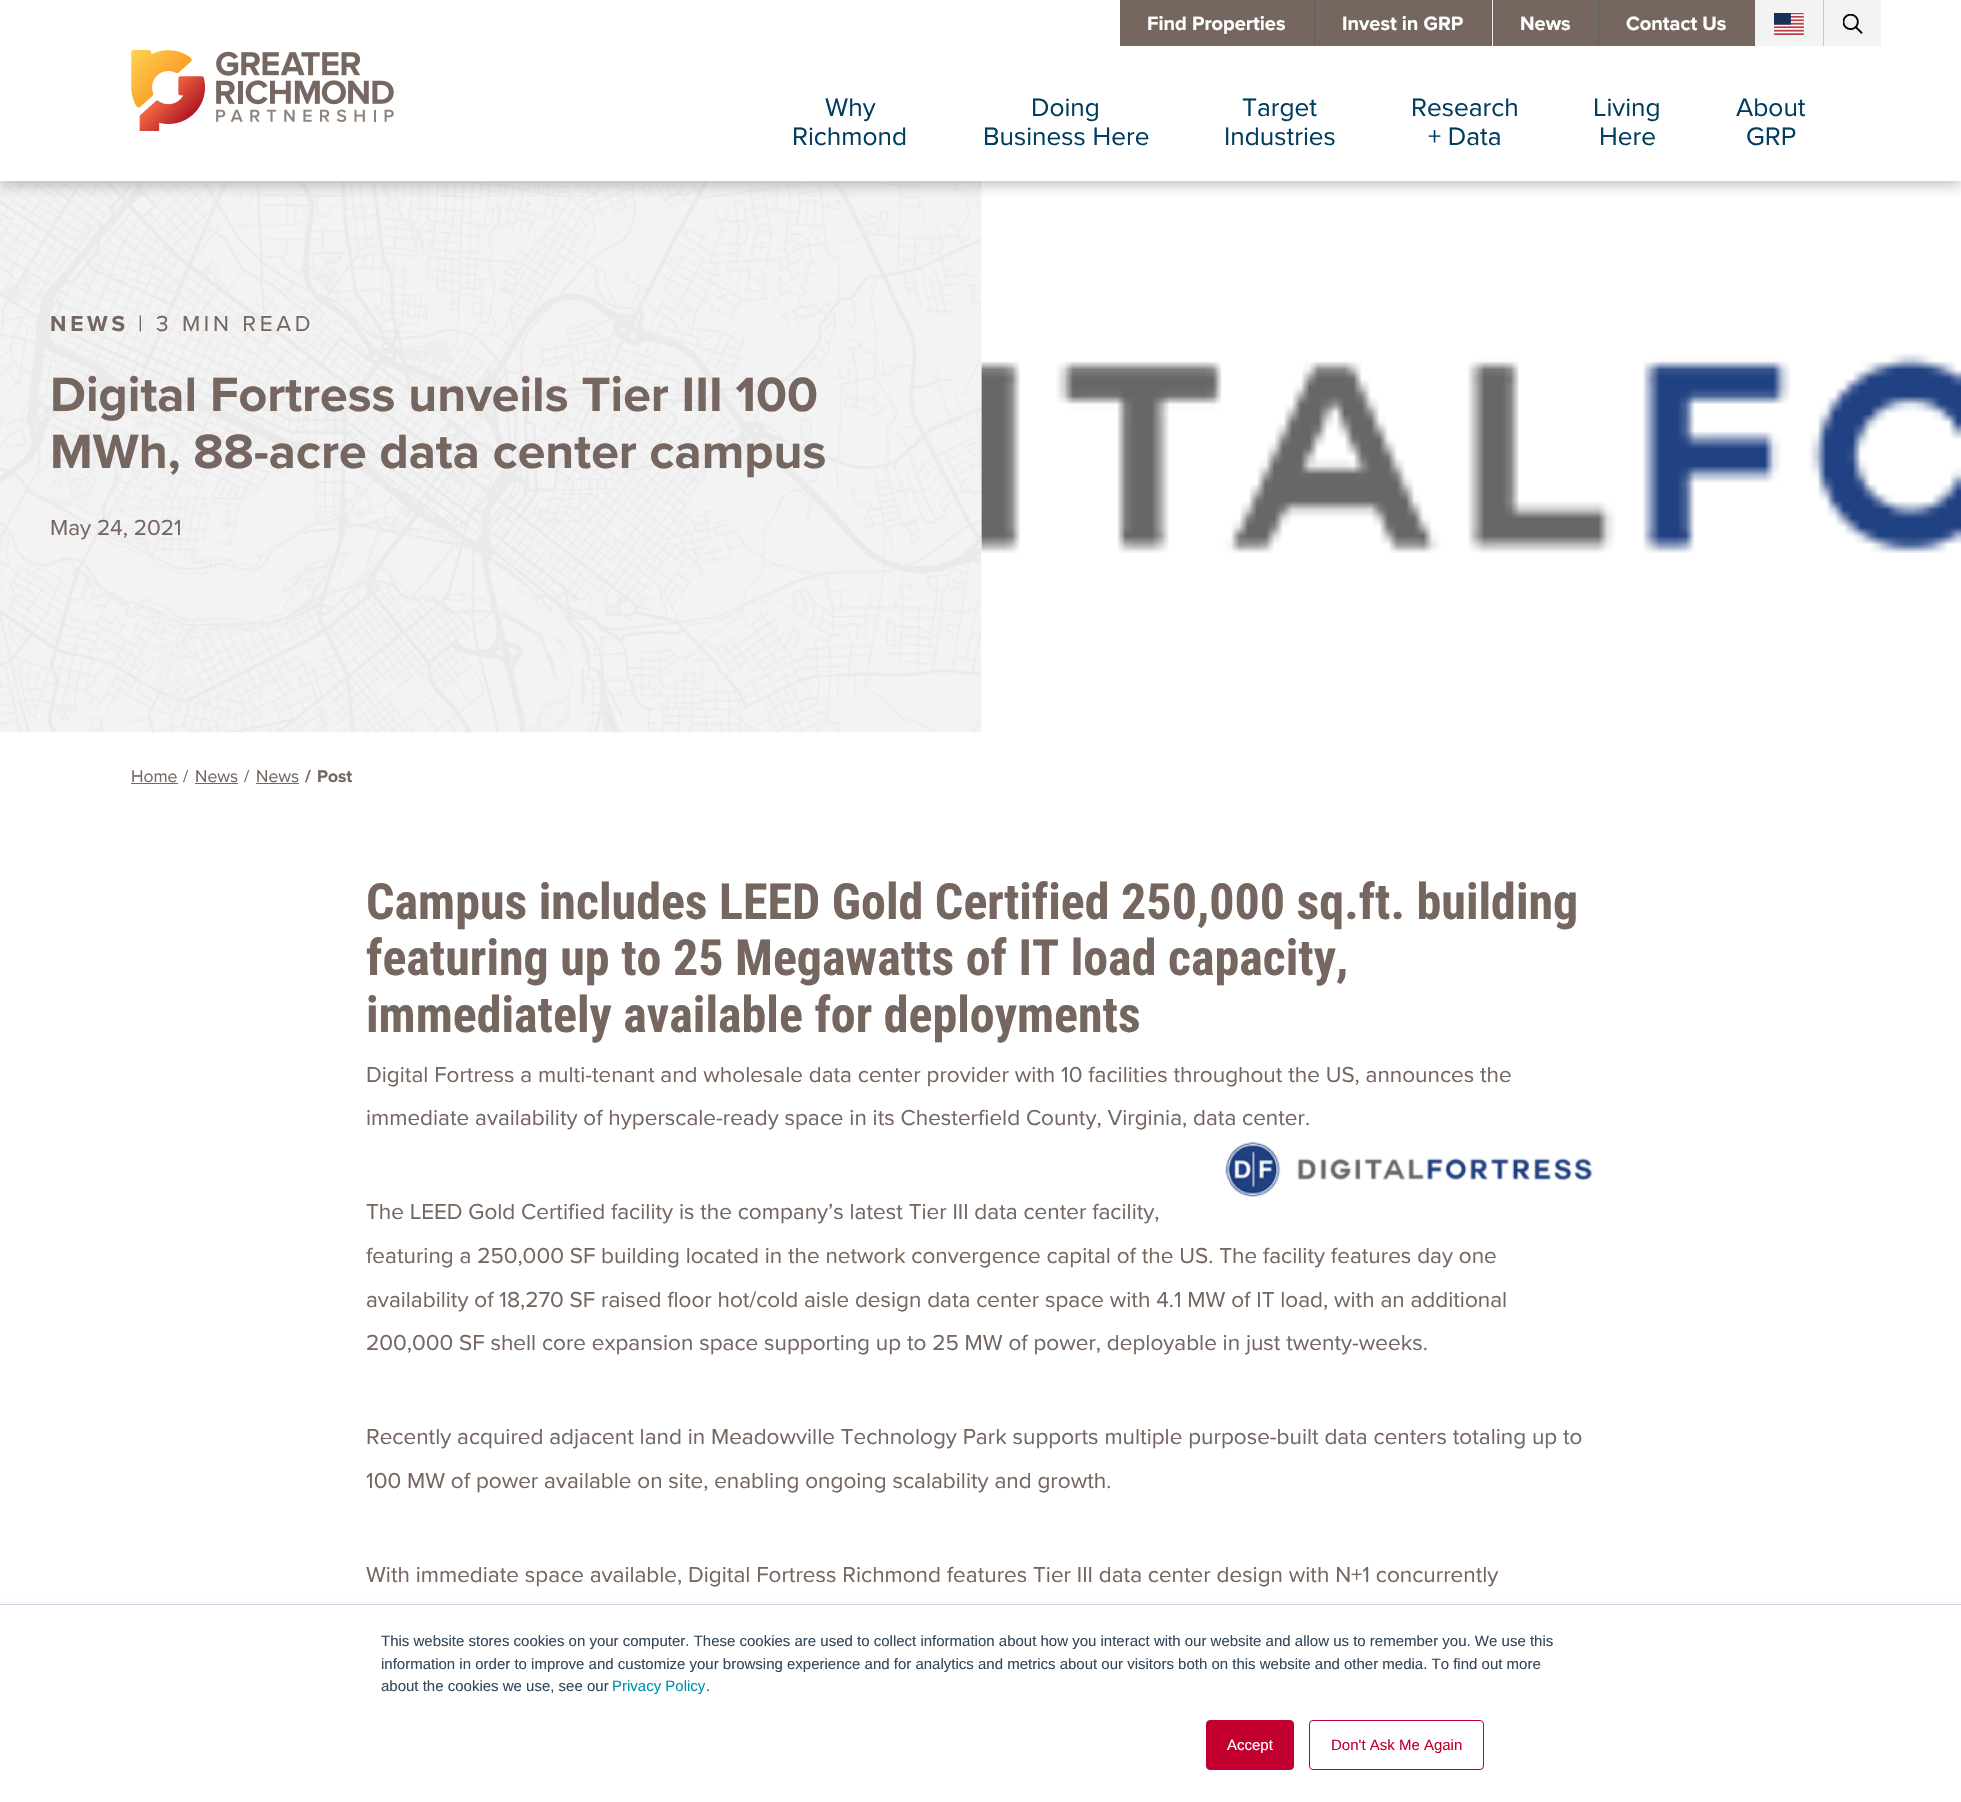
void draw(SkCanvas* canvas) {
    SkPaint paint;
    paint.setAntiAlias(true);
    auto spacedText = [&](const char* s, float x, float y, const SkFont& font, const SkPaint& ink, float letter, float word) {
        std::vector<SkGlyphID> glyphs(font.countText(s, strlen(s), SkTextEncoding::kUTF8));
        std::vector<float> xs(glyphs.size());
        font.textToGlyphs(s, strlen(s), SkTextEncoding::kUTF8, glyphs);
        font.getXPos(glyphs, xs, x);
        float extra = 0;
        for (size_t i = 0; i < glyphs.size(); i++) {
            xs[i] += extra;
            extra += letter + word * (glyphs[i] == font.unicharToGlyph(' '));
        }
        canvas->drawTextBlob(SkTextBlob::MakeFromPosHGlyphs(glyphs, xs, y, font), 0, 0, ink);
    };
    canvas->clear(0xFFFFFFFF);
    canvas->drawImageRect(SkImages::DeferredFromEncodedData(SkData::MakeFromFileName("img5.png")), SkRect::MakeXYWH(981, 353, 980, 200), SkSamplingOptions());
    canvas->drawImageRect(SkImages::DeferredFromEncodedData(SkData::MakeFromFileName("img4.png")), SkRect::MakeXYWH(0, 181, 982, 552), SkSamplingOptions());
    canvas->save();
    canvas->clipRect(SkRect::MakeXYWH(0, 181, 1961, 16));
    paint.setColor(0x806E6E6E);
    paint.setMaskFilter(SkMaskFilter::MakeBlur(kNormal_SkBlurStyle, 7.5f));
    canvas->drawRect(SkRect::MakeXYWH(0, 3, 1961, 181), paint);
    paint.setMaskFilter(nullptr);
    canvas->restore();
    paint.setColor(0xFFF4F3F3);
    canvas->drawRect(SkRect::MakeXYWH(1492, 0, 389, 46), paint);
    paint.setColor(0xFF606060);
    canvas->drawRect(SkRect::MakeXYWH(1314, 0, 1, 46), paint);
    paint.setColor(0xFF756660);
    canvas->drawRect(SkRect::MakeXYWH(1120, 0, 194, 46), paint);
    SkFont font1(fontMgr->matchFamilyStyle("Proxima Nova", SkFontStyle::Bold()), 20);
    font1.setSubpixel(true);
    paint.setColor(0xFFFFFFFF);
    canvas->drawString("Find Properties", 1147, 30, font1, paint);
    paint.setColor(0xFF606060);
    canvas->drawRect(SkRect::MakeXYWH(1491, 0, 1, 46), paint);
    paint.setColor(0xFF756660);
    canvas->drawRect(SkRect::MakeXYWH(1315, 0, 176, 46), paint);
    paint.setColor(0xFFFFFFFF);
    canvas->drawString("Invest in GRP", 1342, 30, font1, paint);
    paint.setColor(0xFF606060);
    canvas->drawRect(SkRect::MakeXYWH(1598, 0, 1, 46), paint);
    paint.setColor(0xFF756660);
    canvas->drawRect(SkRect::MakeXYWH(1493, 0, 105, 46), paint);
    paint.setColor(0xFFFFFFFF);
    canvas->drawString("News", 1520, 30, font1, paint);
    paint.setColor(0xFF756660);
    canvas->drawRect(SkRect::MakeXYWH(1599, 0, 156, 46), paint);
    paint.setColor(0xFFFFFFFF);
    canvas->drawString("Contact Us", 1626, 30, font1, paint);
    paint.setColor(0xFFCDC8C5);
    canvas->drawRect(SkRect::MakeXYWH(1823, 0, 1, 46), paint);
    canvas->drawImageRect(SkImages::DeferredFromEncodedData(SkData::MakeFromFileName("img1.png")), SkRect::MakeXYWH(1774, 13, 30, 22), SkSamplingOptions());
    canvas->drawImageRect(SkImages::DeferredFromEncodedData(SkData::MakeFromFileName("img2.png")), SkRect::MakeXYWH(1843, 14, 20, 20), SkSamplingOptions());
    canvas->drawImageRect(SkImages::DeferredFromEncodedData(SkData::MakeFromFileName("img3.png")), SkRect::MakeXYWH(131, 50, 263, 81), SkSamplingOptions());
    SkFont font2(fontMgr->matchFamilyStyle("Proxima Nova", SkFontStyle::Normal()), 26.25f);
    font2.setSubpixel(true);
    paint.setColor(0xFF013D5F);
    canvas->drawString("Why", 825, 116, font2, paint);
    canvas->drawString("Richmond", 792, 145, font2, paint);
    canvas->drawString("Doing", 1031, 116, font2, paint);
    canvas->drawString("Business Here", 983, 145, font2, paint);
    canvas->drawString("Target", 1242, 116, font2, paint);
    canvas->drawString("Industries", 1224, 145, font2, paint);
    canvas->drawString("Research", 1411, 116, font2, paint);
    canvas->drawString("+ Data", 1428, 145, font2, paint);
    canvas->drawString("Living", 1593, 116, font2, paint);
    canvas->drawString("Here", 1599, 145, font2, paint);
    canvas->drawString("About", 1736, 116, font2, paint);
    canvas->drawString("GRP", 1746, 145, font2, paint);
    SkFont font3(fontMgr->matchFamilyStyle("Proxima Nova", SkFontStyle::Bold()), 22.5f);
    font3.setSubpixel(true);
    paint.setColor(0xFF756660);
    spacedText("NEWS", 50, 331, font3, paint, 3.75f, 0);
    SkFont font4(fontMgr->matchFamilyStyle("Proxima Nova", SkFontStyle::Normal()), 22.5f);
    font4.setSubpixel(true);
    spacedText("| 3 MIN READ", 138, 331, font4, paint, 3.75f, 0);
    SkFont font5(fontMgr->matchFamilyStyle("Proxima Nova", SkFontStyle::Bold()), 50);
    font5.setSubpixel(true);
    canvas->drawString("Digital Fortress unveils Tier III 100", 50, 411, font5, paint);
    canvas->drawString("MWh, 88-acre data center campus", 50, 468, font5, paint);
    canvas->drawString("May 24, 2021", 50, 535, font4, paint);
    SkFont font6(fontMgr->matchFamilyStyle("Proxima Nova", SkFontStyle::Normal()), 17.5f);
    font6.setSubpixel(true);
    canvas->drawString("Home", 131, 782, font6, paint);
    canvas->drawRect(SkRect::MakeXYWH(131, 783, 47, 1), paint);
    canvas->drawString("/", 183, 782, font6, paint);
    canvas->drawString("News", 195, 782, font6, paint);
    canvas->drawRect(SkRect::MakeXYWH(195, 783, 43, 1), paint);
    canvas->drawString("/", 244, 782, font6, paint);
    canvas->drawString("News", 256, 782, font6, paint);
    canvas->drawRect(SkRect::MakeXYWH(256, 783, 43, 1), paint);
    SkFont font7(fontMgr->matchFamilyStyle("Proxima Nova", SkFontStyle::Bold()), 17.5f);
    font7.setSubpixel(true);
    canvas->drawString("/", 305, 782, font7, paint);
    canvas->drawString("Post", 317, 782, font7, paint);
    SkFont font8(fontMgr->matchFamilyStyle("Roboto Condensed", SkFontStyle::Bold()), 50);
    font8.setSubpixel(true);
    canvas->drawString("Campus includes LEED Gold Certified 250,000 sq.ft. building", 366, 919, font8, paint);
    canvas->drawString("featuring up to 25 Megawatts of IT load capacity,", 366, 975, font8, paint);
    canvas->drawString("immediately available for deployments", 366, 1032, font8, paint);
    canvas->drawString("Digital Fortress a multi-tenant and wholesale data center provider with 10 facilities throughout the US, announces the", 366, 1082, font4, paint);
    canvas->drawString("immediate availability of hyperscale-ready space in its Chesterfield County, Virginia, data center.", 366, 1125, font4, paint);
    canvas->drawImageRect(SkImages::DeferredFromEncodedData(SkData::MakeFromFileName("img6.png")), SkRect::MakeXYWH(1225, 1142, 368, 55), SkSamplingOptions());
    canvas->drawString("The LEED Gold Certified facility is the company’s latest Tier III data center facility,", 366, 1219, font4, paint);
    canvas->drawString("featuring a 250,000 SF building located in the network convergence capital of the US. The facility features day one", 366, 1263, font4, paint);
    canvas->drawString("availability of 18,270 SF raised floor hot/cold aisle design data center space with 4.1 MW of IT load, with an additional", 366, 1307, font4, paint);
    canvas->drawString("200,000 SF shell core expansion space supporting up to 25 MW of power, deployable in just twenty-weeks.", 366, 1350, font4, paint);
    canvas->drawString("Recently acquired adjacent land in Meadowville Technology Park supports multiple purpose-built data centers totaling up to", 366, 1444, font4, paint);
    canvas->drawString("100 MW of power available on site, enabling ongoing scalability and growth.", 366, 1488, font4, paint);
    canvas->drawString("With immediate space available, Digital Fortress Richmond features Tier III data center design with N+1 concurrently", 366, 1582, font4, paint);
    paint.setColor(0xFFEAF0F6);
    paint.setMaskFilter(SkMaskFilter::MakeBlur(kNormal_SkBlurStyle, 2));
    canvas->drawRect(SkRect::MakeXYWH(0, 1603, 1961, 198), paint);
    paint.setMaskFilter(nullptr);
    paint.setColor(0xFFFFFFFF);
    canvas->drawRect(SkRect::MakeXYWH(0, 1605, 1961, 197), paint);
    paint.setColor(0xFFCBD6E2);
    canvas->drawRect(SkRect::MakeXYWH(0, 1604, 1961, 1), paint);
    SkFont font9(fontMgr->matchFamilyStyle("Liberation Sans", SkFontStyle::Normal()), 15);
    font9.setSubpixel(true);
    paint.setColor(0xFF33475B);
    canvas->drawString("This website stores cookies on your computer. These cookies are used to collect information about how you interact with our website and allow us to remember you. We use this", 381, 1646, font9, paint);
    canvas->drawString("information in order to improve and customize your browsing experience and for analytics and metrics about our visitors both on this website and other media. To find out more", 381, 1669, font9, paint);
    canvas->drawString("about the cookies we use, see our", 381, 1691, font9, paint);
    paint.setColor(0xFF0091AE);
    canvas->drawString("Privacy Policy", 612, 1691, font9, paint);
    paint.setColor(0xFF33475B);
    canvas->drawString(".", 706, 1691, font9, paint);
    paint.setColor(0xFFC2002F);
    canvas->drawRoundRect(SkRect::MakeXYWH(1206.5f, 1720.5f, 87, 49), 3.5f, 3.5f, paint);
    paint.setStyle(SkPaint::kStroke_Style);
    paint.setStrokeWidth(1);
    canvas->drawRoundRect(SkRect::MakeXYWH(1206.5f, 1720.5f, 87, 49), 3.5f, 3.5f, paint);
    paint.setStyle(SkPaint::kFill_Style);
    paint.setColor(0xFFFFFFFF);
    canvas->drawString("Accept", 1227, 1750, font9, paint);
    paint.setStyle(SkPaint::kStroke_Style);
    paint.setColor(0xFFC2002F);
    canvas->drawRoundRect(SkRect::MakeXYWH(1309.5f, 1720.5f, 174, 49), 3.5f, 3.5f, paint);
    paint.setStyle(SkPaint::kFill_Style);
    canvas->drawString("Don't Ask Me Again", 1331, 1750, font9, paint);
}
